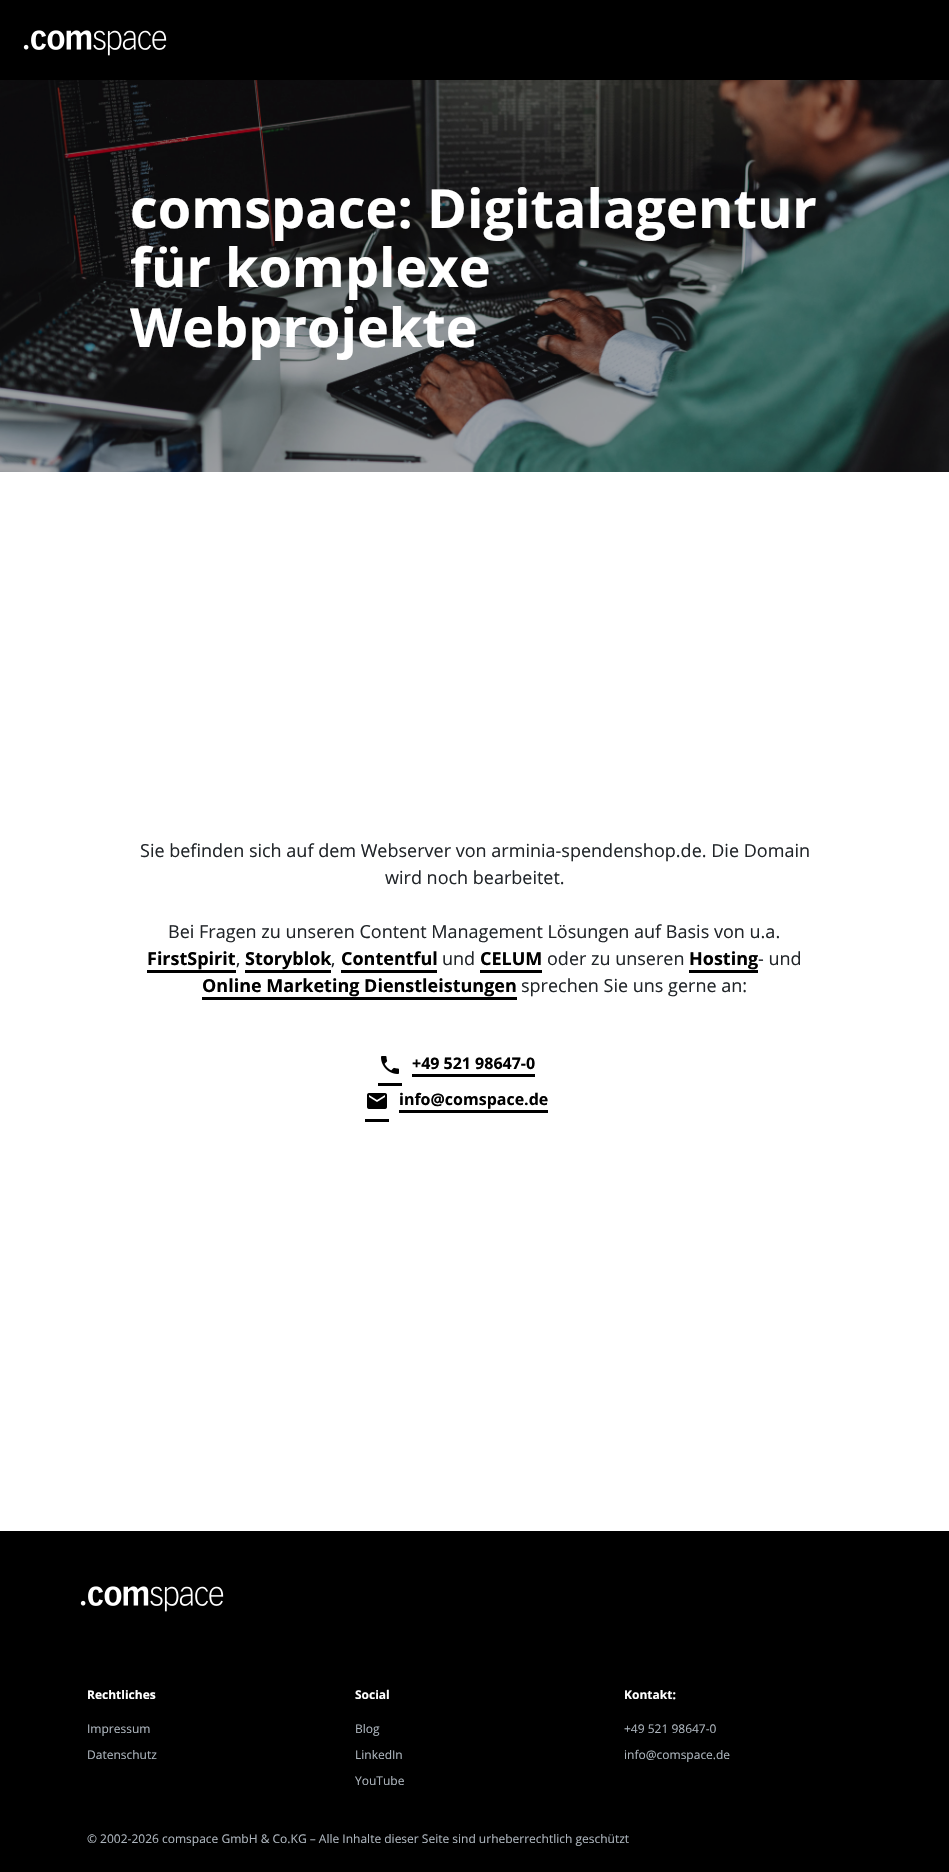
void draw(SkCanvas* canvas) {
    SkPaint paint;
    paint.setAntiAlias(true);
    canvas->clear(0xFFFFFFFF);
    paint.setColor(0xFF000000);
    canvas->drawRect(SkRect::MakeXYWH(0, 0, 949, 80), paint);
    canvas->drawImageRect(SkImages::DeferredFromEncodedData(SkData::MakeFromFileName("img1.png")), SkRect::MakeXYWH(23, 30, 144, 26), SkSamplingOptions());
    canvas->drawImageRect(SkImages::DeferredFromEncodedData(SkData::MakeFromFileName("img2.png")), SkRect::MakeXYWH(0, 80, 949, 392), SkSamplingOptions());
    SkFont font1(fontMgr->matchFamilyStyle("Open Sans", SkFontStyle::Bold()), 54);
    font1.setSubpixel(true);
    paint.setColor(0xFFFFFFFF);
    canvas->drawString("comspace: Digitalagentur", 130, 228, font1, paint);
    canvas->drawString("für komplexe", 130, 287, font1, paint);
    canvas->drawString("Webprojekte", 130, 347, font1, paint);
    SkFont font2(fontMgr->matchFamilyStyle("Open Sans", SkFontStyle::Normal()), 18);
    font2.setSubpixel(true);
    paint.setColor(0xFF212529);
    canvas->drawString("Sie befinden sich auf dem Webserver von arminia-spendenshop.de. Die Domain", 140, 857, font2, paint);
    canvas->drawString("wird noch bearbeitet.", 385, 884, font2, paint);
    canvas->drawString("Bei Fragen zu unseren Content Management Lösungen auf Basis von u.a.", 168, 938, font2, paint);
    SkFont font3(fontMgr->matchFamilyStyle("Open Sans", SkFontStyle::Bold()), 18);
    font3.setSubpixel(true);
    paint.setColor(0xFF000000);
    canvas->drawString("FirstSpirit", 147, 965, font3, paint);
    canvas->drawRect(SkRect::MakeXYWH(147, 970, 89, 3), paint);
    paint.setColor(0xFF212529);
    canvas->drawString(",", 236, 965, font2, paint);
    paint.setColor(0xFF000000);
    canvas->drawString("Storyblok", 245, 965, font3, paint);
    canvas->drawRect(SkRect::MakeXYWH(245, 970, 86, 3), paint);
    paint.setColor(0xFF212529);
    canvas->drawString(",", 331, 965, font2, paint);
    paint.setColor(0xFF000000);
    canvas->drawString("Contentful", 341, 965, font3, paint);
    canvas->drawRect(SkRect::MakeXYWH(341, 970, 96, 3), paint);
    paint.setColor(0xFF212529);
    canvas->drawString("und", 442, 965, font2, paint);
    paint.setColor(0xFF000000);
    canvas->drawString("CELUM", 480, 965, font3, paint);
    canvas->drawRect(SkRect::MakeXYWH(480, 970, 62, 3), paint);
    paint.setColor(0xFF212529);
    canvas->drawString("oder zu unseren", 547, 965, font2, paint);
    paint.setColor(0xFF000000);
    canvas->drawString("Hosting", 689, 965, font3, paint);
    canvas->drawRect(SkRect::MakeXYWH(689, 970, 69, 3), paint);
    paint.setColor(0xFF212529);
    canvas->drawString("- und", 758, 965, font2, paint);
    paint.setColor(0xFF000000);
    canvas->drawString("Online Marketing Dienstleistungen", 202, 992, font3, paint);
    canvas->drawRect(SkRect::MakeXYWH(202, 997, 315, 3), paint);
    paint.setColor(0xFF212529);
    canvas->drawString("sprechen Sie uns gerne an:", 521, 992, font2, paint);
    paint.setColor(0xFF000000);
    canvas->drawRect(SkRect::MakeXYWH(378, 1083, 24, 3), paint);
    canvas->drawRect(SkRect::MakeXYWH(412, 1074, 123, 3), paint);
    canvas->drawImageRect(SkImages::DeferredFromEncodedData(SkData::MakeFromFileName("img3.png")), SkRect::MakeXYWH(381, 1056, 18, 18), SkSamplingOptions());
    SkFont font4(fontMgr->matchFamilyStyle("Open Sans", SkFontStyle::Bold()), 16);
    font4.setSubpixel(true);
    canvas->drawString("+49 521 98647-0", 412, 1069, font4, paint);
    canvas->drawRect(SkRect::MakeXYWH(365, 1119, 24, 3), paint);
    canvas->drawRect(SkRect::MakeXYWH(399, 1110, 149, 3), paint);
    canvas->drawImageRect(SkImages::DeferredFromEncodedData(SkData::MakeFromFileName("img4.png")), SkRect::MakeXYWH(367, 1093, 20, 16), SkSamplingOptions());
    canvas->drawString("info@comspace.de", 399, 1105, font4, paint);
    canvas->drawRect(SkRect::MakeXYWH(0, 1531, 949, 341), paint);
    canvas->drawImageRect(SkImages::DeferredFromEncodedData(SkData::MakeFromFileName("img1.png")), SkRect::MakeXYWH(80, 1586, 144, 26), SkSamplingOptions());
    SkFont font5(fontMgr->matchFamilyStyle("Open Sans", SkFontStyle::Bold()), 12);
    font5.setSubpixel(true);
    paint.setColor(0xFFFFFFFF);
    canvas->drawString("Rechtliches", 87, 1699, font5, paint);
    SkFont font6(fontMgr->matchFamilyStyle("Open Sans", SkFontStyle::Normal()), 12);
    font6.setSubpixel(true);
    paint.setColor(0xFFADB5BD);
    canvas->drawString("Impressum", 87, 1733, font6, paint);
    canvas->drawString("Datenschutz", 87, 1759, font6, paint);
    paint.setColor(0xFFFFFFFF);
    canvas->drawString("Social", 355, 1699, font5, paint);
    paint.setColor(0xFFADB5BD);
    canvas->drawString("Blog", 355, 1733, font6, paint);
    canvas->drawString("LinkedIn", 355, 1759, font6, paint);
    canvas->drawString("YouTube", 355, 1785, font6, paint);
    paint.setColor(0xFFFFFFFF);
    canvas->drawString("Kontakt:", 624, 1699, font5, paint);
    paint.setColor(0xFFADB5BD);
    canvas->drawString("+49 521 98647-0", 624, 1733, font6, paint);
    canvas->drawString("info@comspace.de", 624, 1759, font6, paint);
    canvas->drawString("© 2002-2026 comspace GmbH & Co.KG – Alle Inhalte dieser Seite sind urheberrechtlich geschützt", 87, 1843, font6, paint);
}
